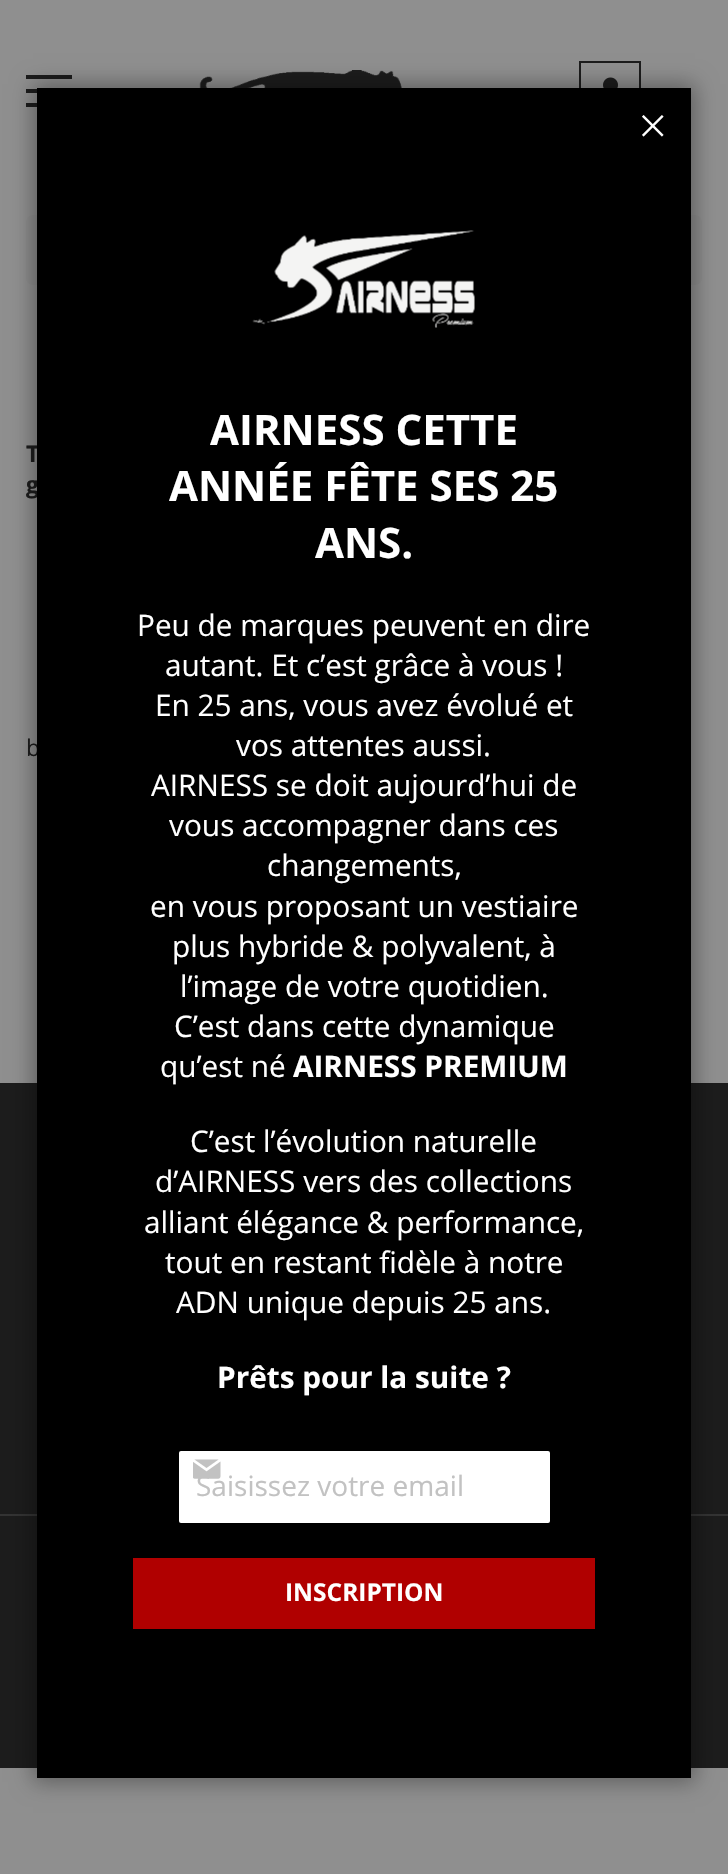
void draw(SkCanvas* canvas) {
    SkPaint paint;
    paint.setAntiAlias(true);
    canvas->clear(0xFF8F8F8F);
    paint.setColor(0xFF1C1C1C);
    canvas->drawRect(SkRect::MakeXYWH(26, 75, 46, 4), paint);
    canvas->drawRect(SkRect::MakeXYWH(26, 103, 11, 4), paint);
    canvas->drawRect(SkRect::MakeXYWH(26, 89, 11, 4), paint);
    canvas->drawImageRect(SkImages::DeferredFromEncodedData(SkData::MakeFromFileName("img1.png")), SkRect::MakeXYWH(199, 70, 203, 18), SkSamplingOptions());
    paint.setStyle(SkPaint::kStroke_Style);
    paint.setStrokeWidth(2);
    canvas->drawRect(SkRect::MakeXYWH(580, 62, 60, 60), paint);
    canvas->drawImageRect(SkImages::DeferredFromEncodedData(SkData::MakeFromFileName("img2.png")), SkRect::MakeXYWH(603, 77, 15, 11), SkSamplingOptions());
    paint.setStyle(SkPaint::kFill_Style);
    paint.setColor(0xFF8C8C8C);
    canvas->drawRoundRect(SkRect::MakeXYWH(26, 215, 676, 70), 7, 7, paint);
    SkFont font1(fontMgr->matchFamilyStyle("Open Sans", SkFontStyle::Bold()), 23);
    font1.setSubpixel(true);
    paint.setColor(0xFF1C1C1C);
    canvas->drawString("T", 26, 462, font1, paint);
    canvas->drawString("g", 26, 493, font1, paint);
    SkFont font2(fontMgr->matchFamilyStyle("Open Sans", SkFontStyle::Normal()), 23);
    font2.setSubpixel(true);
    canvas->drawString("b", 26, 756, font2, paint);
    canvas->drawRect(SkRect::MakeXYWH(0, 1083, 728, 685), paint);
    paint.setColor(0xFF333333);
    canvas->drawRect(SkRect::MakeXYWH(0, 1514, 728, 2), paint);
    paint.setColor(0x59000000);
    paint.setMaskFilter(SkMaskFilter::MakeBlur(kNormal_SkBlurStyle, 10.5f));
    canvas->drawRect(SkRect::MakeXYWH(33, 84, 662, 1698), paint);
    paint.setMaskFilter(nullptr);
    paint.setColor(0xFF000000);
    canvas->drawRect(SkRect::MakeXYWH(37, 88, 654, 1690), paint);
    canvas->drawImageRect(SkImages::DeferredFromEncodedData(SkData::MakeFromFileName("img3.png")), SkRect::MakeXYWH(642, 115, 22, 22), SkSamplingOptions());
    canvas->drawImageRect(SkImages::DeferredFromEncodedData(SkData::MakeFromFileName("img4.png")), SkRect::MakeXYWH(252, 230, 223, 98), SkSamplingOptions());
    SkFont font3(fontMgr->matchFamilyStyle("Open Sans", SkFontStyle::Bold()), 42);
    font3.setSubpixel(true);
    paint.setColor(0xFFFFFFFF);
    canvas->drawString("AIRNESS CETTE", 210, 445, font3, paint);
    canvas->drawString("ANNÉE FÊTE SES 25", 169, 501, font3, paint);
    canvas->drawString("ANS.", 315, 558, font3, paint);
    SkFont font4(fontMgr->matchFamilyStyle("Open Sans", SkFontStyle::Normal()), 29.75f);
    font4.setSubpixel(true);
    canvas->drawString("Peu de marques peuvent en dire", 137, 636, font4, paint);
    canvas->drawString("autant. Et c’est grâce à vous !", 165, 676, font4, paint);
    canvas->drawString("En 25 ans, vous avez évolué et", 155, 716, font4, paint);
    canvas->drawString("vos attentes aussi.", 236, 756, font4, paint);
    canvas->drawString("AIRNESS se doit aujourd’hui de", 151, 796, font4, paint);
    canvas->drawString("vous accompagner dans ces", 169, 836, font4, paint);
    canvas->drawString("changements,", 267, 876, font4, paint);
    canvas->drawString("en vous proposant un vestiaire", 150, 917, font4, paint);
    canvas->drawString("plus hybride & polyvalent, à", 172, 957, font4, paint);
    canvas->drawString("l’image de votre quotidien.", 180, 997, font4, paint);
    canvas->drawString("C’est dans cette dynamique", 174, 1037, font4, paint);
    canvas->drawString("qu’est né", 160, 1077, font4, paint);
    SkFont font5(fontMgr->matchFamilyStyle("Open Sans", SkFontStyle::Bold()), 29.75f);
    font5.setSubpixel(true);
    canvas->drawString("AIRNESS PREMIUM", 293, 1077, font5, paint);
    canvas->drawString("C’est l’évolution naturelle", 190, 1152, font4, paint);
    canvas->drawString("d’AIRNESS vers des collections", 155, 1192, font4, paint);
    canvas->drawString("alliant élégance & performance,", 144, 1233, font4, paint);
    canvas->drawString("tout en restant fidèle à notre", 165, 1273, font4, paint);
    canvas->drawString("ADN unique depuis 25 ans.", 176, 1313, font4, paint);
    canvas->drawString("Prêts pour la suite ?", 217, 1388, font5, paint);
    canvas->drawRoundRect(SkRect::MakeXYWH(179, 1451, 371, 72), 2, 2, paint);
    SkFont font6(fontMgr->matchFamilyStyle("Open Sans", SkFontStyle::Normal()), 28);
    font6.setSubpixel(true);
    paint.setColor(0xFFC2C2C2);
    canvas->drawString("Saisissez votre email", 196, 1496, font6, paint);
    canvas->drawImageRect(SkImages::DeferredFromEncodedData(SkData::MakeFromFileName("img5.png")), SkRect::MakeXYWH(193, 1459, 28, 20), SkSamplingOptions());
    paint.setColor(0xFFB00000);
    canvas->drawRect(SkRect::MakeXYWH(133, 1558, 462, 71), paint);
    SkFont font7(fontMgr->matchFamilyStyle("Open Sans", SkFontStyle::Bold()), 24.5f);
    font7.setSubpixel(true);
    paint.setColor(0xFFFFFFFF);
    canvas->drawString("INSCRIPTION", 285, 1601, font7, paint);
}
